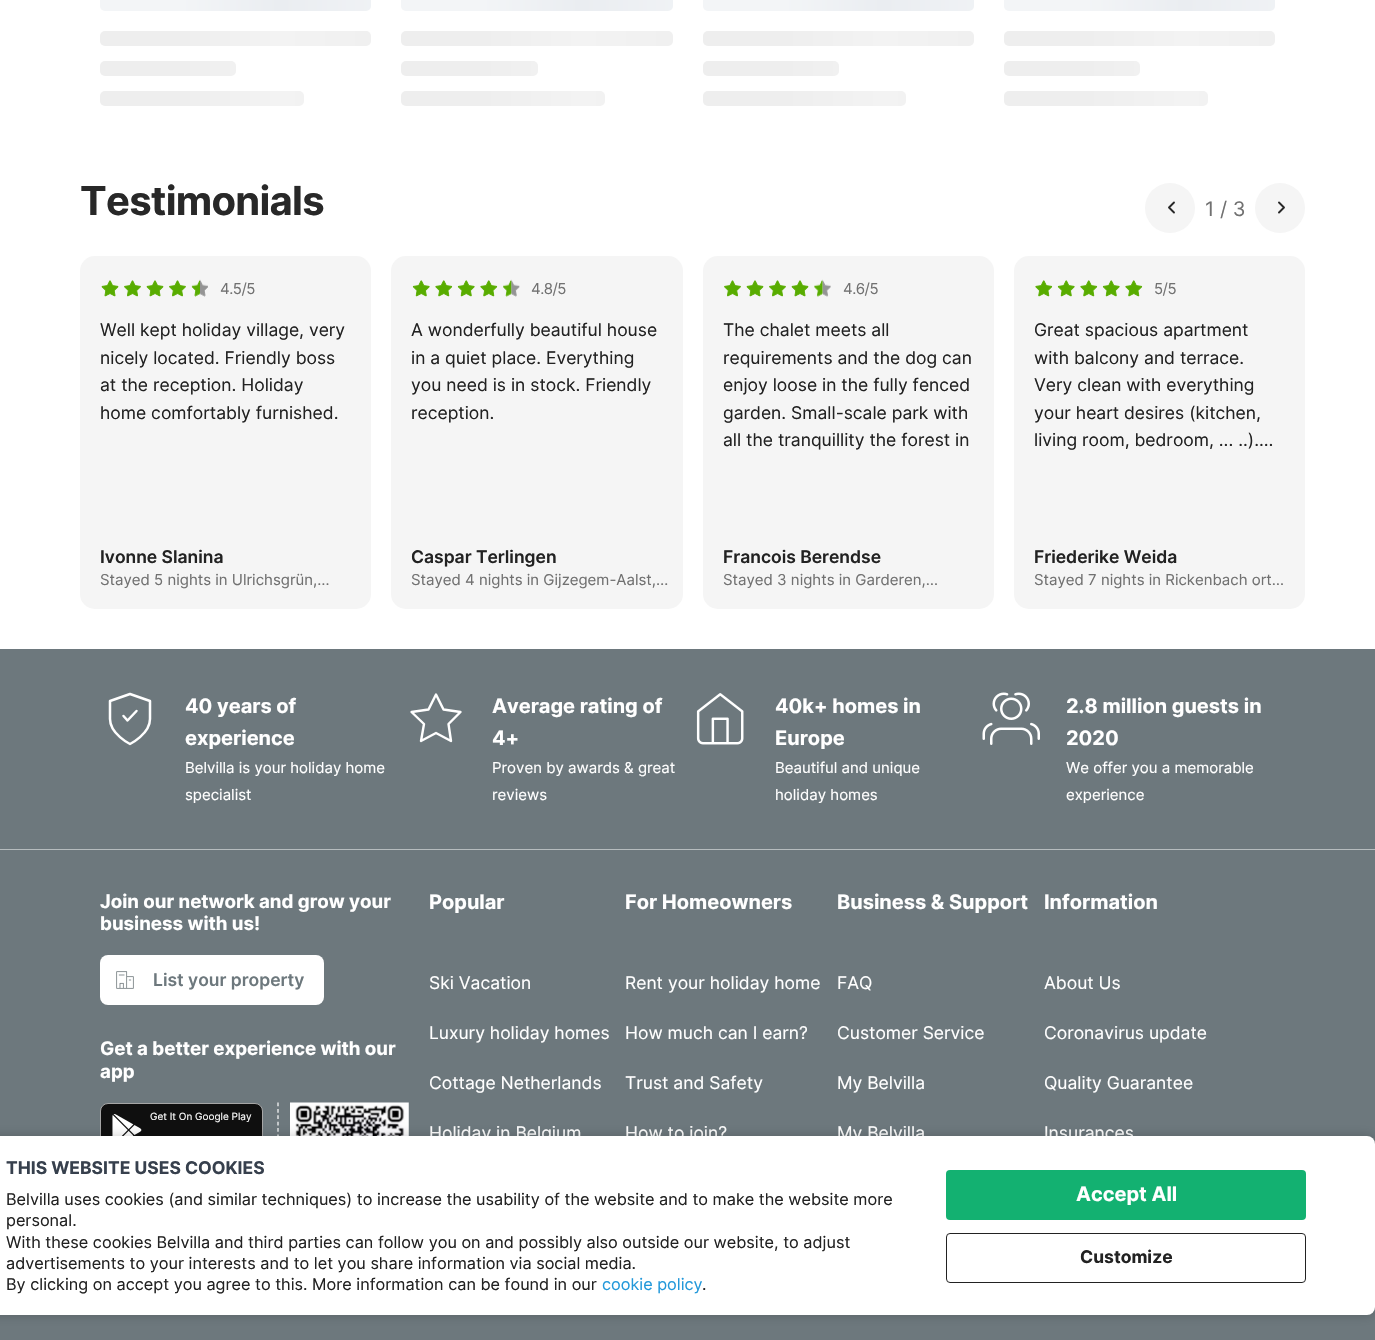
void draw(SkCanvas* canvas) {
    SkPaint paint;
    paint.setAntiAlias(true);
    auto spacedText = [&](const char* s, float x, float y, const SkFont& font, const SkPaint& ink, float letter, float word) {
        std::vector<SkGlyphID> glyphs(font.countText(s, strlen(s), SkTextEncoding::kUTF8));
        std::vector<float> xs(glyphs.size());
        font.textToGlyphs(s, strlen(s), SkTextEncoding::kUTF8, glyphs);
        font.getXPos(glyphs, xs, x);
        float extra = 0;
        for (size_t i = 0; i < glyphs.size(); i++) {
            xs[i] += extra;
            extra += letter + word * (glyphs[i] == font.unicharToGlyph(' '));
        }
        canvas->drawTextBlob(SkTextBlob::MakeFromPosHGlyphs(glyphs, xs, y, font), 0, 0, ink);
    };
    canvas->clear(0xFFFFFFFF);
    {
        const SkColor colors[] = {0xFFF3F5F7, 0xFFEAEDF1, 0xFFF3F5F7};
        const float stops[] = {0.08f, 0.18f, 0.33f};
        const SkPoint ends[] = {{100, -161}, {1100, -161}};
        paint.setShader(SkGradientShader::MakeLinear(ends, colors, stops, 3, SkTileMode::kClamp));
        paint.setAlpha(255);
    }
    canvas->drawRoundRect(SkRect::MakeXYWH(100, -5, 271, 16), 5, 5, paint);
    {
        const SkColor colors[] = {0xFFEEEEEE, 0xFFF3F3F3, 0xFFEEEEEE};
        const float stops[] = {0.08f, 0.18f, 0.33f};
        const SkPoint ends[] = {{100, 96}, {1100, 96}};
        paint.setShader(SkGradientShader::MakeLinear(ends, colors, stops, 3, SkTileMode::kClamp));
        paint.setAlpha(255);
    }
    canvas->drawRoundRect(SkRect::MakeXYWH(100, 31, 271, 15), 5, 5, paint);
    {
        const SkColor colors[] = {0xFFEEEEEE, 0xFFF3F3F3, 0xFFEEEEEE};
        const float stops[] = {0.08f, 0.18f, 0.33f};
        const SkPoint ends[] = {{100, 126}, {1100, 126}};
        paint.setShader(SkGradientShader::MakeLinear(ends, colors, stops, 3, SkTileMode::kClamp));
        paint.setAlpha(255);
    }
    canvas->drawRoundRect(SkRect::MakeXYWH(100, 61, 136, 15), 5, 5, paint);
    {
        const SkColor colors[] = {0xFFEEEEEE, 0xFFF3F3F3, 0xFFEEEEEE};
        const float stops[] = {0.08f, 0.18f, 0.33f};
        const SkPoint ends[] = {{100, 156}, {1100, 156}};
        paint.setShader(SkGradientShader::MakeLinear(ends, colors, stops, 3, SkTileMode::kClamp));
        paint.setAlpha(255);
    }
    canvas->drawRoundRect(SkRect::MakeXYWH(100, 91, 204, 15), 5, 5, paint);
    {
        const SkColor colors[] = {0xFFF3F5F7, 0xFFEAEDF1, 0xFFF3F5F7};
        const float stops[] = {0.08f, 0.18f, 0.33f};
        const SkPoint ends[] = {{401, -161}, {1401, -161}};
        paint.setShader(SkGradientShader::MakeLinear(ends, colors, stops, 3, SkTileMode::kClamp));
        paint.setAlpha(255);
    }
    canvas->drawRoundRect(SkRect::MakeXYWH(401, -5, 272, 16), 5, 5, paint);
    {
        const SkColor colors[] = {0xFFEEEEEE, 0xFFF3F3F3, 0xFFEEEEEE};
        const float stops[] = {0.08f, 0.18f, 0.33f};
        const SkPoint ends[] = {{401, 96}, {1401, 96}};
        paint.setShader(SkGradientShader::MakeLinear(ends, colors, stops, 3, SkTileMode::kClamp));
        paint.setAlpha(255);
    }
    canvas->drawRoundRect(SkRect::MakeXYWH(401, 31, 272, 15), 5, 5, paint);
    {
        const SkColor colors[] = {0xFFEEEEEE, 0xFFF3F3F3, 0xFFEEEEEE};
        const float stops[] = {0.08f, 0.18f, 0.33f};
        const SkPoint ends[] = {{401, 126}, {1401, 126}};
        paint.setShader(SkGradientShader::MakeLinear(ends, colors, stops, 3, SkTileMode::kClamp));
        paint.setAlpha(255);
    }
    canvas->drawRoundRect(SkRect::MakeXYWH(401, 61, 137, 15), 5, 5, paint);
    {
        const SkColor colors[] = {0xFFEEEEEE, 0xFFF3F3F3, 0xFFEEEEEE};
        const float stops[] = {0.08f, 0.18f, 0.33f};
        const SkPoint ends[] = {{401, 156}, {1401, 156}};
        paint.setShader(SkGradientShader::MakeLinear(ends, colors, stops, 3, SkTileMode::kClamp));
        paint.setAlpha(255);
    }
    canvas->drawRoundRect(SkRect::MakeXYWH(401, 91, 204, 15), 5, 5, paint);
    {
        const SkColor colors[] = {0xFFF3F5F7, 0xFFEAEDF1, 0xFFF3F5F7};
        const float stops[] = {0.08f, 0.18f, 0.33f};
        const SkPoint ends[] = {{703, -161}, {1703, -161}};
        paint.setShader(SkGradientShader::MakeLinear(ends, colors, stops, 3, SkTileMode::kClamp));
        paint.setAlpha(255);
    }
    canvas->drawRoundRect(SkRect::MakeXYWH(703, -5, 271, 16), 5, 5, paint);
    {
        const SkColor colors[] = {0xFFEEEEEE, 0xFFF3F3F3, 0xFFEEEEEE};
        const float stops[] = {0.08f, 0.18f, 0.33f};
        const SkPoint ends[] = {{703, 96}, {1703, 96}};
        paint.setShader(SkGradientShader::MakeLinear(ends, colors, stops, 3, SkTileMode::kClamp));
        paint.setAlpha(255);
    }
    canvas->drawRoundRect(SkRect::MakeXYWH(703, 31, 271, 15), 5, 5, paint);
    {
        const SkColor colors[] = {0xFFEEEEEE, 0xFFF3F3F3, 0xFFEEEEEE};
        const float stops[] = {0.08f, 0.18f, 0.33f};
        const SkPoint ends[] = {{703, 126}, {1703, 126}};
        paint.setShader(SkGradientShader::MakeLinear(ends, colors, stops, 3, SkTileMode::kClamp));
        paint.setAlpha(255);
    }
    canvas->drawRoundRect(SkRect::MakeXYWH(703, 61, 136, 15), 5, 5, paint);
    {
        const SkColor colors[] = {0xFFEEEEEE, 0xFFF3F3F3, 0xFFEEEEEE};
        const float stops[] = {0.08f, 0.18f, 0.33f};
        const SkPoint ends[] = {{703, 156}, {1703, 156}};
        paint.setShader(SkGradientShader::MakeLinear(ends, colors, stops, 3, SkTileMode::kClamp));
        paint.setAlpha(255);
    }
    canvas->drawRoundRect(SkRect::MakeXYWH(703, 91, 203, 15), 5, 5, paint);
    {
        const SkColor colors[] = {0xFFF3F5F7, 0xFFEAEDF1, 0xFFF3F5F7};
        const float stops[] = {0.08f, 0.18f, 0.33f};
        const SkPoint ends[] = {{1004, -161}, {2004, -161}};
        paint.setShader(SkGradientShader::MakeLinear(ends, colors, stops, 3, SkTileMode::kClamp));
        paint.setAlpha(255);
    }
    canvas->drawRoundRect(SkRect::MakeXYWH(1004, -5, 271, 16), 5, 5, paint);
    {
        const SkColor colors[] = {0xFFEEEEEE, 0xFFF3F3F3, 0xFFEEEEEE};
        const float stops[] = {0.08f, 0.18f, 0.33f};
        const SkPoint ends[] = {{1004, 96}, {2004, 96}};
        paint.setShader(SkGradientShader::MakeLinear(ends, colors, stops, 3, SkTileMode::kClamp));
        paint.setAlpha(255);
    }
    canvas->drawRoundRect(SkRect::MakeXYWH(1004, 31, 271, 15), 5, 5, paint);
    {
        const SkColor colors[] = {0xFFEEEEEE, 0xFFF3F3F3, 0xFFEEEEEE};
        const float stops[] = {0.08f, 0.18f, 0.33f};
        const SkPoint ends[] = {{1004, 126}, {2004, 126}};
        paint.setShader(SkGradientShader::MakeLinear(ends, colors, stops, 3, SkTileMode::kClamp));
        paint.setAlpha(255);
    }
    canvas->drawRoundRect(SkRect::MakeXYWH(1004, 61, 136, 15), 5, 5, paint);
    {
        const SkColor colors[] = {0xFFEEEEEE, 0xFFF3F3F3, 0xFFEEEEEE};
        const float stops[] = {0.08f, 0.18f, 0.33f};
        const SkPoint ends[] = {{1004, 156}, {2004, 156}};
        paint.setShader(SkGradientShader::MakeLinear(ends, colors, stops, 3, SkTileMode::kClamp));
        paint.setAlpha(255);
    }
    canvas->drawRoundRect(SkRect::MakeXYWH(1004, 91, 204, 15), 5, 5, paint);
    SkFont font1(fontMgr->matchFamilyStyle("Inter", SkFontStyle::Bold()), 40);
    font1.setSubpixel(true);
    paint.setShader(nullptr);
    paint.setColor(0xFF282828);
    spacedText("Testimonials", 80, 215, font1, paint, -0.75f, 0);
    paint.setColor(0xFFF5F5F5);
    canvas->drawCircle(1170, 208, 25, paint);
    paint.setStyle(SkPaint::kStroke_Style);
    paint.setStrokeWidth(1.9f);
    paint.setStrokeCap(SkPaint::kRound_Cap);
    paint.setStrokeJoin(SkPaint::kRound_Join);
    paint.setColor(0xFF282828);
    canvas->drawPath(SkPathBuilder().moveTo(1174, 212.5f).lineTo(1169, 207.5f).lineTo(1174, 202.5f).detach(), paint);
    SkFont font2(fontMgr->matchFamilyStyle("Inter", SkFontStyle::Normal()), 20);
    font2.setSubpixel(true);
    paint.setStyle(SkPaint::kFill_Style);
    paint.setColor(0xFF717171);
    canvas->drawString("1 / 3", 1205, 216, font2, paint);
    paint.setColor(0xFFF5F5F5);
    canvas->drawCircle(1280, 208, 25, paint);
    paint.setStyle(SkPaint::kStroke_Style);
    paint.setColor(0xFF282828);
    canvas->drawPath(SkPathBuilder().moveTo(1279, 212.5f).lineTo(1284, 207.5f).lineTo(1279, 202.5f).detach(), paint);
    paint.setStyle(SkPaint::kFill_Style);
    paint.setColor(0xFFF5F5F5);
    canvas->drawRoundRect(SkRect::MakeXYWH(80, 256, 291, 353), 15, 15, paint);
    canvas->drawImageRect(SkImages::DeferredFromEncodedData(SkData::MakeFromFileName("img1.png")), SkRect::MakeXYWH(101, 280, 18, 17), SkSamplingOptions());
    canvas->drawImageRect(SkImages::DeferredFromEncodedData(SkData::MakeFromFileName("img2.png")), SkRect::MakeXYWH(124, 280, 17, 17), SkSamplingOptions());
    canvas->drawImageRect(SkImages::DeferredFromEncodedData(SkData::MakeFromFileName("img1.png")), SkRect::MakeXYWH(146, 280, 18, 17), SkSamplingOptions());
    canvas->drawImageRect(SkImages::DeferredFromEncodedData(SkData::MakeFromFileName("img2.png")), SkRect::MakeXYWH(169, 280, 17, 17), SkSamplingOptions());
    canvas->drawImageRect(SkImages::DeferredFromEncodedData(SkData::MakeFromFileName("img3.png")), SkRect::MakeXYWH(191, 279, 17, 18), SkSamplingOptions());
    SkFont font3(fontMgr->matchFamilyStyle("Inter", SkFontStyle::Normal()), 15);
    font3.setSubpixel(true);
    paint.setColor(0xFF717171);
    spacedText("4.5/5", 220, 294, font3, paint, -0.5f, 0);
    SkFont font4(fontMgr->matchFamilyStyle("Inter", SkFontStyle::Normal()), 17.5f);
    font4.setSubpixel(true);
    paint.setColor(0xFF222222);
    canvas->drawString("Well kept holiday village, very", 100, 336, font4, paint);
    canvas->drawString("nicely located. Friendly boss", 100, 364, font4, paint);
    canvas->drawString("at the reception. Holiday", 100, 391, font4, paint);
    canvas->drawString("home comfortably furnished.", 100, 419, font4, paint);
    SkFont font5(fontMgr->matchFamilyStyle("Inter", SkFontStyle(600, SkFontStyle::kNormal_Width, SkFontStyle::kUpright_Slant)), 17.5f);
    font5.setSubpixel(true);
    canvas->drawString("Ivonne Slanina", 100, 563, font5, paint);
    paint.setColor(0xFF717171);
    canvas->drawString("Stayed 5 nights in Ulrichsgrün,…", 100, 585, font3, paint);
    paint.setColor(0xFFF5F5F5);
    canvas->drawRoundRect(SkRect::MakeXYWH(391, 256, 292, 353), 15, 15, paint);
    canvas->drawImageRect(SkImages::DeferredFromEncodedData(SkData::MakeFromFileName("img4.png")), SkRect::MakeXYWH(412, 280, 18, 17), SkSamplingOptions());
    canvas->drawImageRect(SkImages::DeferredFromEncodedData(SkData::MakeFromFileName("img5.png")), SkRect::MakeXYWH(435, 280, 18, 17), SkSamplingOptions());
    canvas->drawImageRect(SkImages::DeferredFromEncodedData(SkData::MakeFromFileName("img4.png")), SkRect::MakeXYWH(457, 280, 18, 17), SkSamplingOptions());
    canvas->drawImageRect(SkImages::DeferredFromEncodedData(SkData::MakeFromFileName("img5.png")), SkRect::MakeXYWH(480, 280, 18, 17), SkSamplingOptions());
    canvas->drawImageRect(SkImages::DeferredFromEncodedData(SkData::MakeFromFileName("img6.png")), SkRect::MakeXYWH(503, 279, 17, 18), SkSamplingOptions());
    paint.setColor(0xFF717171);
    spacedText("4.8/5", 531, 294, font3, paint, -0.5f, 0);
    paint.setColor(0xFF222222);
    canvas->drawString("A wonderfully beautiful house", 411, 336, font4, paint);
    canvas->drawString("in a quiet place. Everything", 411, 364, font4, paint);
    canvas->drawString("you need is in stock. Friendly", 411, 391, font4, paint);
    canvas->drawString("reception.", 411, 419, font4, paint);
    canvas->drawString("Caspar Terlingen", 411, 563, font5, paint);
    paint.setColor(0xFF717171);
    canvas->drawString("Stayed 4 nights in Gijzegem-Aalst,…", 411, 585, font3, paint);
    paint.setColor(0xFFF5F5F5);
    canvas->drawRoundRect(SkRect::MakeXYWH(703, 256, 291, 353), 15, 15, paint);
    canvas->drawImageRect(SkImages::DeferredFromEncodedData(SkData::MakeFromFileName("img2.png")), SkRect::MakeXYWH(724, 280, 17, 17), SkSamplingOptions());
    canvas->drawImageRect(SkImages::DeferredFromEncodedData(SkData::MakeFromFileName("img1.png")), SkRect::MakeXYWH(746, 280, 18, 17), SkSamplingOptions());
    canvas->drawImageRect(SkImages::DeferredFromEncodedData(SkData::MakeFromFileName("img2.png")), SkRect::MakeXYWH(769, 280, 17, 17), SkSamplingOptions());
    canvas->drawImageRect(SkImages::DeferredFromEncodedData(SkData::MakeFromFileName("img1.png")), SkRect::MakeXYWH(791, 280, 18, 17), SkSamplingOptions());
    canvas->drawImageRect(SkImages::DeferredFromEncodedData(SkData::MakeFromFileName("img7.png")), SkRect::MakeXYWH(814, 279, 17, 18), SkSamplingOptions());
    paint.setColor(0xFF717171);
    spacedText("4.6/5", 843, 294, font3, paint, -0.5f, 0);
    paint.setColor(0xFF222222);
    canvas->drawString("The chalet meets all", 723, 336, font4, paint);
    canvas->drawString("requirements and the dog can", 723, 364, font4, paint);
    canvas->drawString("enjoy loose in the fully fenced", 723, 391, font4, paint);
    canvas->drawString("garden. Small-scale park with", 723, 419, font4, paint);
    canvas->drawString("all the tranquillity the forest in", 723, 446, font4, paint);
    canvas->drawString("Francois Berendse", 723, 563, font5, paint);
    paint.setColor(0xFF717171);
    canvas->drawString("Stayed 3 nights in Garderen,…", 723, 585, font3, paint);
    paint.setColor(0xFFF5F5F5);
    canvas->drawRoundRect(SkRect::MakeXYWH(1014, 256, 291, 353), 15, 15, paint);
    canvas->drawImageRect(SkImages::DeferredFromEncodedData(SkData::MakeFromFileName("img5.png")), SkRect::MakeXYWH(1035, 280, 18, 17), SkSamplingOptions());
    canvas->drawImageRect(SkImages::DeferredFromEncodedData(SkData::MakeFromFileName("img4.png")), SkRect::MakeXYWH(1057, 280, 18, 17), SkSamplingOptions());
    canvas->drawImageRect(SkImages::DeferredFromEncodedData(SkData::MakeFromFileName("img5.png")), SkRect::MakeXYWH(1080, 280, 18, 17), SkSamplingOptions());
    canvas->drawImageRect(SkImages::DeferredFromEncodedData(SkData::MakeFromFileName("img4.png")), SkRect::MakeXYWH(1102, 280, 18, 17), SkSamplingOptions());
    canvas->drawImageRect(SkImages::DeferredFromEncodedData(SkData::MakeFromFileName("img5.png")), SkRect::MakeXYWH(1125, 280, 18, 17), SkSamplingOptions());
    paint.setColor(0xFF717171);
    spacedText("5/5", 1154, 294, font3, paint, -0.5f, 0);
    paint.setColor(0xFF222222);
    canvas->drawString("Great spacious apartment", 1034, 336, font4, paint);
    canvas->drawString("with balcony and terrace.", 1034, 364, font4, paint);
    canvas->drawString("Very clean with everything", 1034, 391, font4, paint);
    canvas->drawString("your heart desires (kitchen,", 1034, 419, font4, paint);
    canvas->drawString("living room, bedroom, ... ..).…", 1034, 446, font4, paint);
    canvas->drawString("Friederike Weida", 1034, 563, font5, paint);
    paint.setColor(0xFF717171);
    canvas->drawString("Stayed 7 nights in Rickenbach ort…", 1034, 585, font3, paint);
    paint.setColor(0xFF6D787D);
    canvas->drawRect(SkRect::MakeXYWH(0, 649, 1375, 200), paint);
    paint.setStyle(SkPaint::kStroke_Style);
    paint.setStrokeWidth(2.5f);
    paint.setColor(0xFFFFFFFF);
    canvas->drawPath(SkPathBuilder().moveTo(130, 744).cubicTo(130, 744, 150, 734, 150, 719).lineTo(150, 701).lineTo(130, 694).lineTo(110, 701).lineTo(110, 719).cubicTo(110, 734, 130, 744, 130, 744).close().moveTo(136.5f, 711).lineTo(127.5f, 720.5f).lineTo(123.5f, 716).detach(), paint);
    SkFont font6(fontMgr->matchFamilyStyle("Inter", SkFontStyle::Bold()), 20);
    font6.setSubpixel(true);
    paint.setStyle(SkPaint::kFill_Style);
    canvas->drawString("40 years of", 185, 713, font6, paint);
    canvas->drawString("experience", 185, 745, font6, paint);
    canvas->drawString("Belvilla is your holiday home", 185, 773, font3, paint);
    canvas->drawString("specialist", 185, 800, font3, paint);
    paint.setStyle(SkPaint::kStroke_Style);
    paint.setStrokeWidth(2.4f);
    canvas->drawPath(SkPathBuilder().moveTo(436, 694.5f).lineTo(443.5f, 709.5f).lineTo(460.5f, 712).lineTo(448.5f, 724).lineTo(451, 741).lineTo(436, 733).lineTo(421, 741).lineTo(424, 724).lineTo(411.5f, 712).lineTo(428.5f, 709.5f).close().detach(), paint);
    paint.setStyle(SkPaint::kFill_Style);
    canvas->drawString("Average rating of", 492, 713, font6, paint);
    canvas->drawString("4+", 492, 745, font6, paint);
    canvas->drawString("Proven by awards & great", 492, 773, font3, paint);
    canvas->drawString("reviews", 492, 800, font3, paint);
    canvas->drawImageRect(SkImages::DeferredFromEncodedData(SkData::MakeFromFileName("img8.png")), SkRect::MakeXYWH(696, 693, 48, 52), SkSamplingOptions());
    canvas->drawString("40k+ homes in", 775, 713, font6, paint);
    canvas->drawString("Europe", 775, 745, font6, paint);
    canvas->drawString("Beautiful and unique", 775, 773, font3, paint);
    canvas->drawString("holiday homes", 775, 800, font3, paint);
    canvas->drawImageRect(SkImages::DeferredFromEncodedData(SkData::MakeFromFileName("img9.png")), SkRect::MakeXYWH(982, 692, 58, 53), SkSamplingOptions());
    canvas->drawString("2.8 million guests in", 1066, 713, font6, paint);
    canvas->drawString("2020", 1066, 745, font6, paint);
    canvas->drawString("We offer you a memorable", 1066, 773, font3, paint);
    canvas->drawString("experience", 1066, 800, font3, paint);
    paint.setColor(0xFF6D787D);
    canvas->drawRect(SkRect::MakeXYWH(0, 850, 1375, 490), paint);
    paint.setColor(0xFFB6BCBE);
    canvas->drawRect(SkRect::MakeXYWH(0, 849, 1375, 1), paint);
    SkFont font7(fontMgr->matchFamilyStyle("Inter", SkFontStyle::Bold()), 18.75f);
    font7.setSubpixel(true);
    paint.setColor(0xFFFFFFFF);
    canvas->drawString("Join our network and grow your", 100, 908, font7, paint);
    canvas->drawString("business with us!", 100, 930, font7, paint);
    canvas->drawRoundRect(SkRect::MakeXYWH(100, 955, 224, 50), 8, 8, paint);
    canvas->drawImageRect(SkImages::DeferredFromEncodedData(SkData::MakeFromFileName("img10.png")), SkRect::MakeXYWH(116, 971, 18, 18), SkSamplingOptions());
    paint.setColor(0xFF6D787D);
    canvas->drawString("List your property", 153, 986, font5, paint);
    paint.setColor(0xFFFFFFFF);
    canvas->drawString("Get a better experience with our", 100, 1055, font7, paint);
    canvas->drawString("app", 100, 1078, font7, paint);
    paint.setColor(0xFF0F0F0F);
    canvas->drawRoundRect(SkRect::MakeXYWH(100.5f, 1103.5f, 162, 50), 7.5f, 7.5f, paint);
    paint.setStyle(SkPaint::kStroke_Style);
    paint.setStrokeWidth(1);
    paint.setStrokeCap(SkPaint::kButt_Cap);
    paint.setStrokeJoin(SkPaint::kMiter_Join);
    paint.setColor(0xFFA6A6A6);
    canvas->drawRoundRect(SkRect::MakeXYWH(100.5f, 1103.5f, 162, 50), 7.5f, 7.5f, paint);
    canvas->drawImageRect(SkImages::DeferredFromEncodedData(SkData::MakeFromFileName("img11.png")), SkRect::MakeXYWH(112, 1114, 30, 22), SkSamplingOptions());
    SkFont font8(fontMgr->matchFamilyStyle("Inter", SkFontStyle::Normal()), 10);
    font8.setSubpixel(true);
    paint.setStyle(SkPaint::kFill_Style);
    paint.setColor(0xFFFFFFFF);
    canvas->drawString("Get It On Google Play", 150, 1120, font8, paint);
    paint.setStyle(SkPaint::kStroke_Style);
    paint.setStrokeWidth(1.2f);
    paint.setPathEffect(SkDashPathEffect::Make({{3.75f, 2.64f}}, 0));
    canvas->drawPath(SkPathBuilder().moveTo(278, 1102.5f).lineTo(278, 1221).detach(), paint);
    paint.setPathEffect(nullptr);
    canvas->drawImageRect(SkImages::DeferredFromEncodedData(SkData::MakeFromFileName("img12.png")), SkRect::MakeXYWH(290, 1102, 119, 34), SkSamplingOptions());
    paint.setStyle(SkPaint::kFill_Style);
    canvas->drawString("Popular", 429, 909, font6, paint);
    canvas->drawString("Ski Vacation", 429, 989, font4, paint);
    canvas->drawString("Luxury holiday homes", 429, 1039, font4, paint);
    canvas->drawString("Cottage Netherlands", 429, 1089, font4, paint);
    canvas->drawString("Holiday in Belgium", 429, 1139, font4, paint);
    canvas->drawString("For Homeowners", 625, 909, font6, paint);
    canvas->drawString("Rent your holiday home", 625, 989, font4, paint);
    canvas->drawString("How much can I earn?", 625, 1039, font4, paint);
    canvas->drawString("Trust and Safety", 625, 1089, font4, paint);
    canvas->drawString("How to join?", 625, 1139, font4, paint);
    canvas->drawString("Business & Support", 837, 909, font6, paint);
    canvas->drawString("FAQ", 837, 989, font4, paint);
    canvas->drawString("Customer Service", 837, 1039, font4, paint);
    canvas->drawString("My Belvilla", 837, 1089, font4, paint);
    canvas->drawString("My Belvilla", 837, 1139, font4, paint);
    canvas->drawString("Information", 1044, 909, font6, paint);
    canvas->drawString("About Us", 1044, 989, font4, paint);
    canvas->drawString("Coronavirus update", 1044, 1039, font4, paint);
    canvas->drawString("Quality Guarantee", 1044, 1089, font4, paint);
    canvas->drawString("Insurances", 1044, 1139, font4, paint);
    paint.setColor(0x33000000);
    paint.setMaskFilter(SkMaskFilter::MakeBlur(kNormal_SkBlurStyle, 6));
    canvas->drawRoundRect(SkRect::MakeXYWH(-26, 1136, 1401, 179), 8, 8, paint);
    paint.setMaskFilter(nullptr);
    paint.setColor(0xFFFFFFFF);
    canvas->drawRoundRect(SkRect::MakeXYWH(-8, 1136, 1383, 179), 8, 8, paint);
    SkFont font9(fontMgr->matchFamilyStyle("Inter", SkFontStyle::Bold()), 17.5f);
    font9.setSubpixel(true);
    paint.setColor(0xFF37404D);
    canvas->drawString("THIS WEBSITE USES COOKIES", 6, 1174, font9, paint);
    SkFont font10(fontMgr->matchFamilyStyle("Inter", SkFontStyle::Normal()), 16.25f);
    font10.setSubpixel(true);
    paint.setColor(0xFF222222);
    canvas->drawString("Belvilla uses cookies (and similar techniques) to increase the usability of the website and to make the website more", 6, 1205, font10, paint);
    canvas->drawString("personal.", 6, 1226, font10, paint);
    canvas->drawString("With these cookies Belvilla and third parties can follow you on and possibly also outside our website, to adjust", 6, 1248, font10, paint);
    canvas->drawString("advertisements to your interests and to let you share information via social media.", 6, 1269, font10, paint);
    canvas->drawString("By clicking on accept you agree to this. More information can be found in our", 6, 1290, font10, paint);
    paint.setColor(0xFF2298DA);
    canvas->drawString("cookie policy", 602, 1290, font10, paint);
    paint.setColor(0xFF222222);
    canvas->drawString(".", 702, 1290, font10, paint);
    paint.setColor(0xFF13B171);
    canvas->drawRoundRect(SkRect::MakeXYWH(946, 1170, 360, 50), 4, 4, paint);
    paint.setColor(0xFFFFFFFF);
    canvas->drawString("Accept All", 1076, 1201, font6, paint);
    paint.setStyle(SkPaint::kStroke_Style);
    paint.setStrokeWidth(1);
    paint.setColor(0xFF222222);
    canvas->drawRoundRect(SkRect::MakeXYWH(946.5f, 1233.5f, 359, 49), 3.5f, 3.5f, paint);
    paint.setStyle(SkPaint::kFill_Style);
    canvas->drawString("Customize", 1080, 1263, font9, paint);
}
